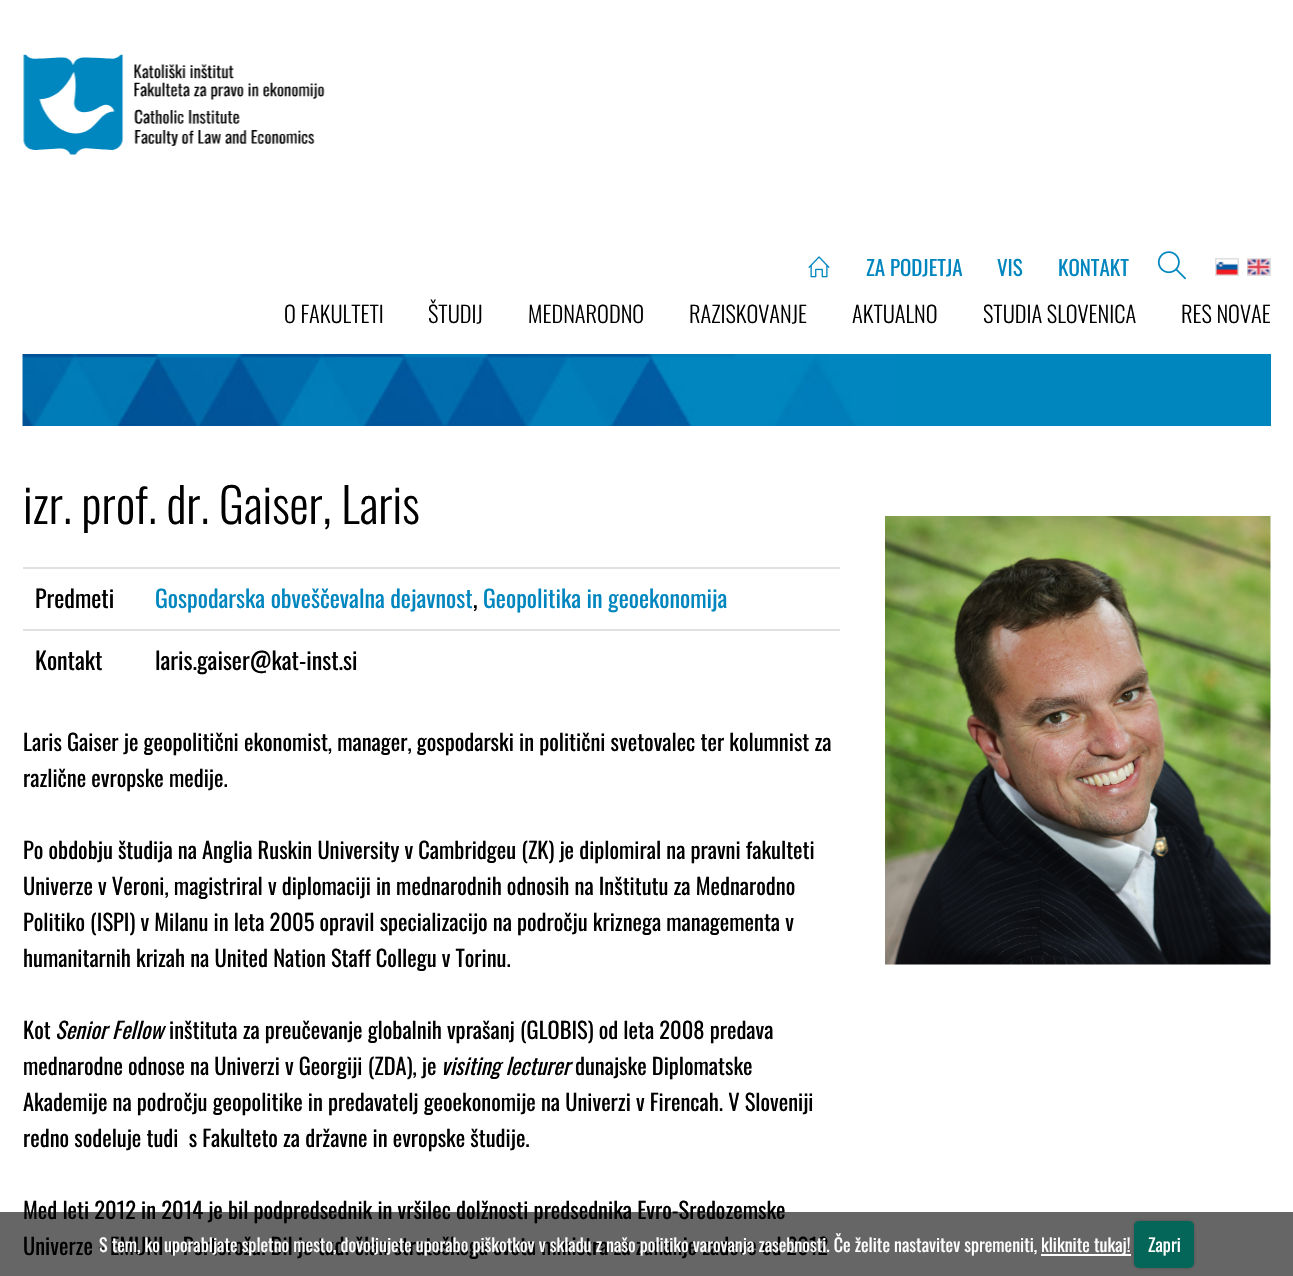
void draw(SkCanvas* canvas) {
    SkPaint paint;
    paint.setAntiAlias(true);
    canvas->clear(0xFFFFFFFF);
    canvas->drawImageRect(SkImages::DeferredFromEncodedData(SkData::MakeFromFileName("img1.png")), SkRect::MakeXYWH(23, 54, 302, 101), SkSamplingOptions());
    canvas->drawImageRect(SkImages::DeferredFromEncodedData(SkData::MakeFromFileName("img2.png")), SkRect::MakeXYWH(808, 256, 22, 22), SkSamplingOptions());
    SkFont font1(fontMgr->matchFamilyStyle("Oswald", SkFontStyle::Normal()), 21);
    font1.setSubpixel(true);
    paint.setColor(0xFF0086BF);
    canvas->drawString("ZA PODJETJA", 866, 276, font1, paint);
    canvas->drawString("VIS", 997, 276, font1, paint);
    canvas->drawString("KONTAKT", 1058, 276, font1, paint);
    canvas->drawImageRect(SkImages::DeferredFromEncodedData(SkData::MakeFromFileName("img3.png")), SkRect::MakeXYWH(1157, 251, 29, 29), SkSamplingOptions());
    paint.setStyle(SkPaint::kStroke_Style);
    paint.setStrokeWidth(2);
    paint.setColor(0xFFDFDFDF);
    canvas->drawRect(SkRect::MakeXYWH(1216, 259, 22, 16), paint);
    canvas->drawRect(SkRect::MakeXYWH(1248, 259, 22, 16), paint);
    canvas->drawImageRect(SkImages::DeferredFromEncodedData(SkData::MakeFromFileName("img4.png")), SkRect::MakeXYWH(1216, 259, 22, 16), SkSamplingOptions());
    canvas->drawImageRect(SkImages::DeferredFromEncodedData(SkData::MakeFromFileName("img5.png")), SkRect::MakeXYWH(1247, 259, 23, 16), SkSamplingOptions());
    SkFont font2(fontMgr->matchFamilyStyle("Oswald", SkFontStyle(300, SkFontStyle::kNormal_Width, SkFontStyle::kUpright_Slant)), 22.5f);
    font2.setSubpixel(true);
    paint.setStyle(SkPaint::kFill_Style);
    paint.setColor(0xFF000000);
    canvas->drawString("O FAKULTETI", 284, 323, font2, paint);
    canvas->drawString("ŠTUDIJ", 428, 323, font2, paint);
    canvas->drawString("MEDNARODNO", 528, 323, font2, paint);
    canvas->drawString("RAZISKOVANJE", 689, 323, font2, paint);
    canvas->drawString("AKTUALNO", 852, 323, font2, paint);
    canvas->drawString("STUDIA SLOVENICA", 983, 323, font2, paint);
    canvas->drawString("RES NOVAE", 1181, 323, font2, paint);
    paint.setColor(0xFF0086BF);
    canvas->drawRect(SkRect::MakeXYWH(897, 354, 374, 72), paint);
    canvas->drawImageRect(SkImages::DeferredFromEncodedData(SkData::MakeFromFileName("img6.png")), SkRect::MakeXYWH(22, 354, 875, 72), SkSamplingOptions());
    SkFont font3(fontMgr->matchFamilyStyle("Oswald", SkFontStyle(300, SkFontStyle::kNormal_Width, SkFontStyle::kUpright_Slant)), 48);
    font3.setSubpixel(true);
    paint.setColor(0xFF000000);
    canvas->drawString("izr. prof. dr. Gaiser, Laris", 23, 524, font3, paint);
    SkFont font4(fontMgr->matchFamilyStyle("Oswald", SkFontStyle::Normal()), 24);
    font4.setSubpixel(true);
    canvas->drawString("Predmeti", 35, 608, font4, paint);
    paint.setColor(0xFFE1E1E1);
    canvas->drawRect(SkRect::MakeXYWH(23, 567, 817, 2), paint);
    paint.setColor(0xFF0086BF);
    canvas->drawString("Gospodarska obveščevalna dejavnost", 155, 608, font4, paint);
    paint.setColor(0xFF000000);
    canvas->drawString(",", 473, 608, font4, paint);
    paint.setColor(0xFF0086BF);
    canvas->drawString("Geopolitika in geoekonomija", 483, 608, font4, paint);
    paint.setColor(0xFF000000);
    canvas->drawString("Kontakt", 35, 670, font4, paint);
    paint.setColor(0xFFE1E1E1);
    canvas->drawRect(SkRect::MakeXYWH(23, 629, 817, 2), paint);
    paint.setColor(0xFF000000);
    canvas->drawString("laris.gaiser@kat-inst.si", 155, 670, font4, paint);
    SkFont font5(fontMgr->matchFamilyStyle("Oswald", SkFontStyle::Normal()), 22.5f);
    font5.setSubpixel(true);
    canvas->drawString("Laris Gaiser je geopolitični ekonomist, manager, gospodarski in politični svetovalec ter kolumnist za", 23, 751, font5, paint);
    canvas->drawString("različne evropske medije.", 23, 787, font5, paint);
    canvas->drawString("Po obdobju študija na Anglia Ruskin University v Cambridgeu (ZK) je diplomiral na pravni fakulteti", 23, 859, font5, paint);
    canvas->drawString("Univerze v Veroni, magistriral v diplomaciji in mednarodnih odnosih na Inštitutu za Mednarodno", 23, 895, font5, paint);
    canvas->drawString("Politiko (ISPI) v Milanu in leta 2005 opravil specializacijo na področju kriznega managementa v", 23, 931, font5, paint);
    canvas->drawString("humanitarnih krizah na United Nation Staff Collegu v Torinu.", 23, 967, font5, paint);
    canvas->drawString("Kot", 23, 1039, font5, paint);
    SkFont font6(fontMgr->matchFamilyStyle("Oswald", SkFontStyle::Italic()), 22.5f);
    font6.setSubpixel(true);
    canvas->drawString("Senior Fellow", 55, 1039, font6, paint);
    canvas->drawString("inštituta za preučevanje globalnih vprašanj (GLOBIS) od leta 2008 predava", 169, 1039, font5, paint);
    canvas->drawString("mednarodne odnose na Univerzi v Georgiji (ZDA), je", 23, 1075, font5, paint);
    canvas->drawString("visiting lecturer", 441, 1075, font6, paint);
    canvas->drawString("dunajske Diplomatske", 575, 1075, font5, paint);
    canvas->drawString("Akademije na področju geopolitike in predavatelj geoekonomije na Univerzi v Firencah. V Sloveniji", 23, 1111, font5, paint);
    canvas->drawString("redno sodeluje tudi  s Fakulteto za državne in evropske študije.", 23, 1147, font5, paint);
    canvas->drawString("Med leti 2012 in 2014 je bil podpredsednik in vršilec dolžnosti predsednika Evro-Sredozemske", 23, 1219, font5, paint);
    canvas->drawString("Univerze - EMUNI v Portorožu. Bil je tudi član strateškega sveta ministra za zunanje zadeve od 2012", 23, 1255, font5, paint);
    canvas->drawImageRect(SkImages::DeferredFromEncodedData(SkData::MakeFromFileName("img7.png")), SkRect::MakeXYWH(885, 516, 386, 449), SkSamplingOptions());
    paint.setColor(0x99000000);
    canvas->drawRect(SkRect::MakeXYWH(0, 1212, 1293, 64), paint);
    SkFont font7(fontMgr->matchFamilyStyle("Oswald", SkFontStyle::Normal()), 18);
    font7.setSubpixel(true);
    paint.setColor(0xFFFFFFFF);
    canvas->drawString("S tem, ko uporabljate spletno mesto, dovoljujete uporabo piškotkov v skladu z našo politiko varovanja zasebnosti. Če želite nastavitev spremeniti,", 99, 1252, font7, paint);
    canvas->drawRect(SkRect::MakeXYWH(1041, 1254, 90, 2), paint);
    canvas->drawString("kliknite tukaj!", 1041, 1252, font7, paint);
    paint.setColor(0x40000000);
    paint.setMaskFilter(SkMaskFilter::MakeBlur(kNormal_SkBlurStyle, 1.5f));
    canvas->drawRoundRect(SkRect::MakeXYWH(1134, 1221, 60, 47), 5, 5, paint);
    paint.setMaskFilter(nullptr);
    paint.setColor(0xFF046659);
    canvas->drawRoundRect(SkRect::MakeXYWH(1134, 1221, 60, 47), 5, 5, paint);
    paint.setColor(0xFFFFFFFF);
    canvas->drawString("Zapri", 1148, 1252, font7, paint);
}
